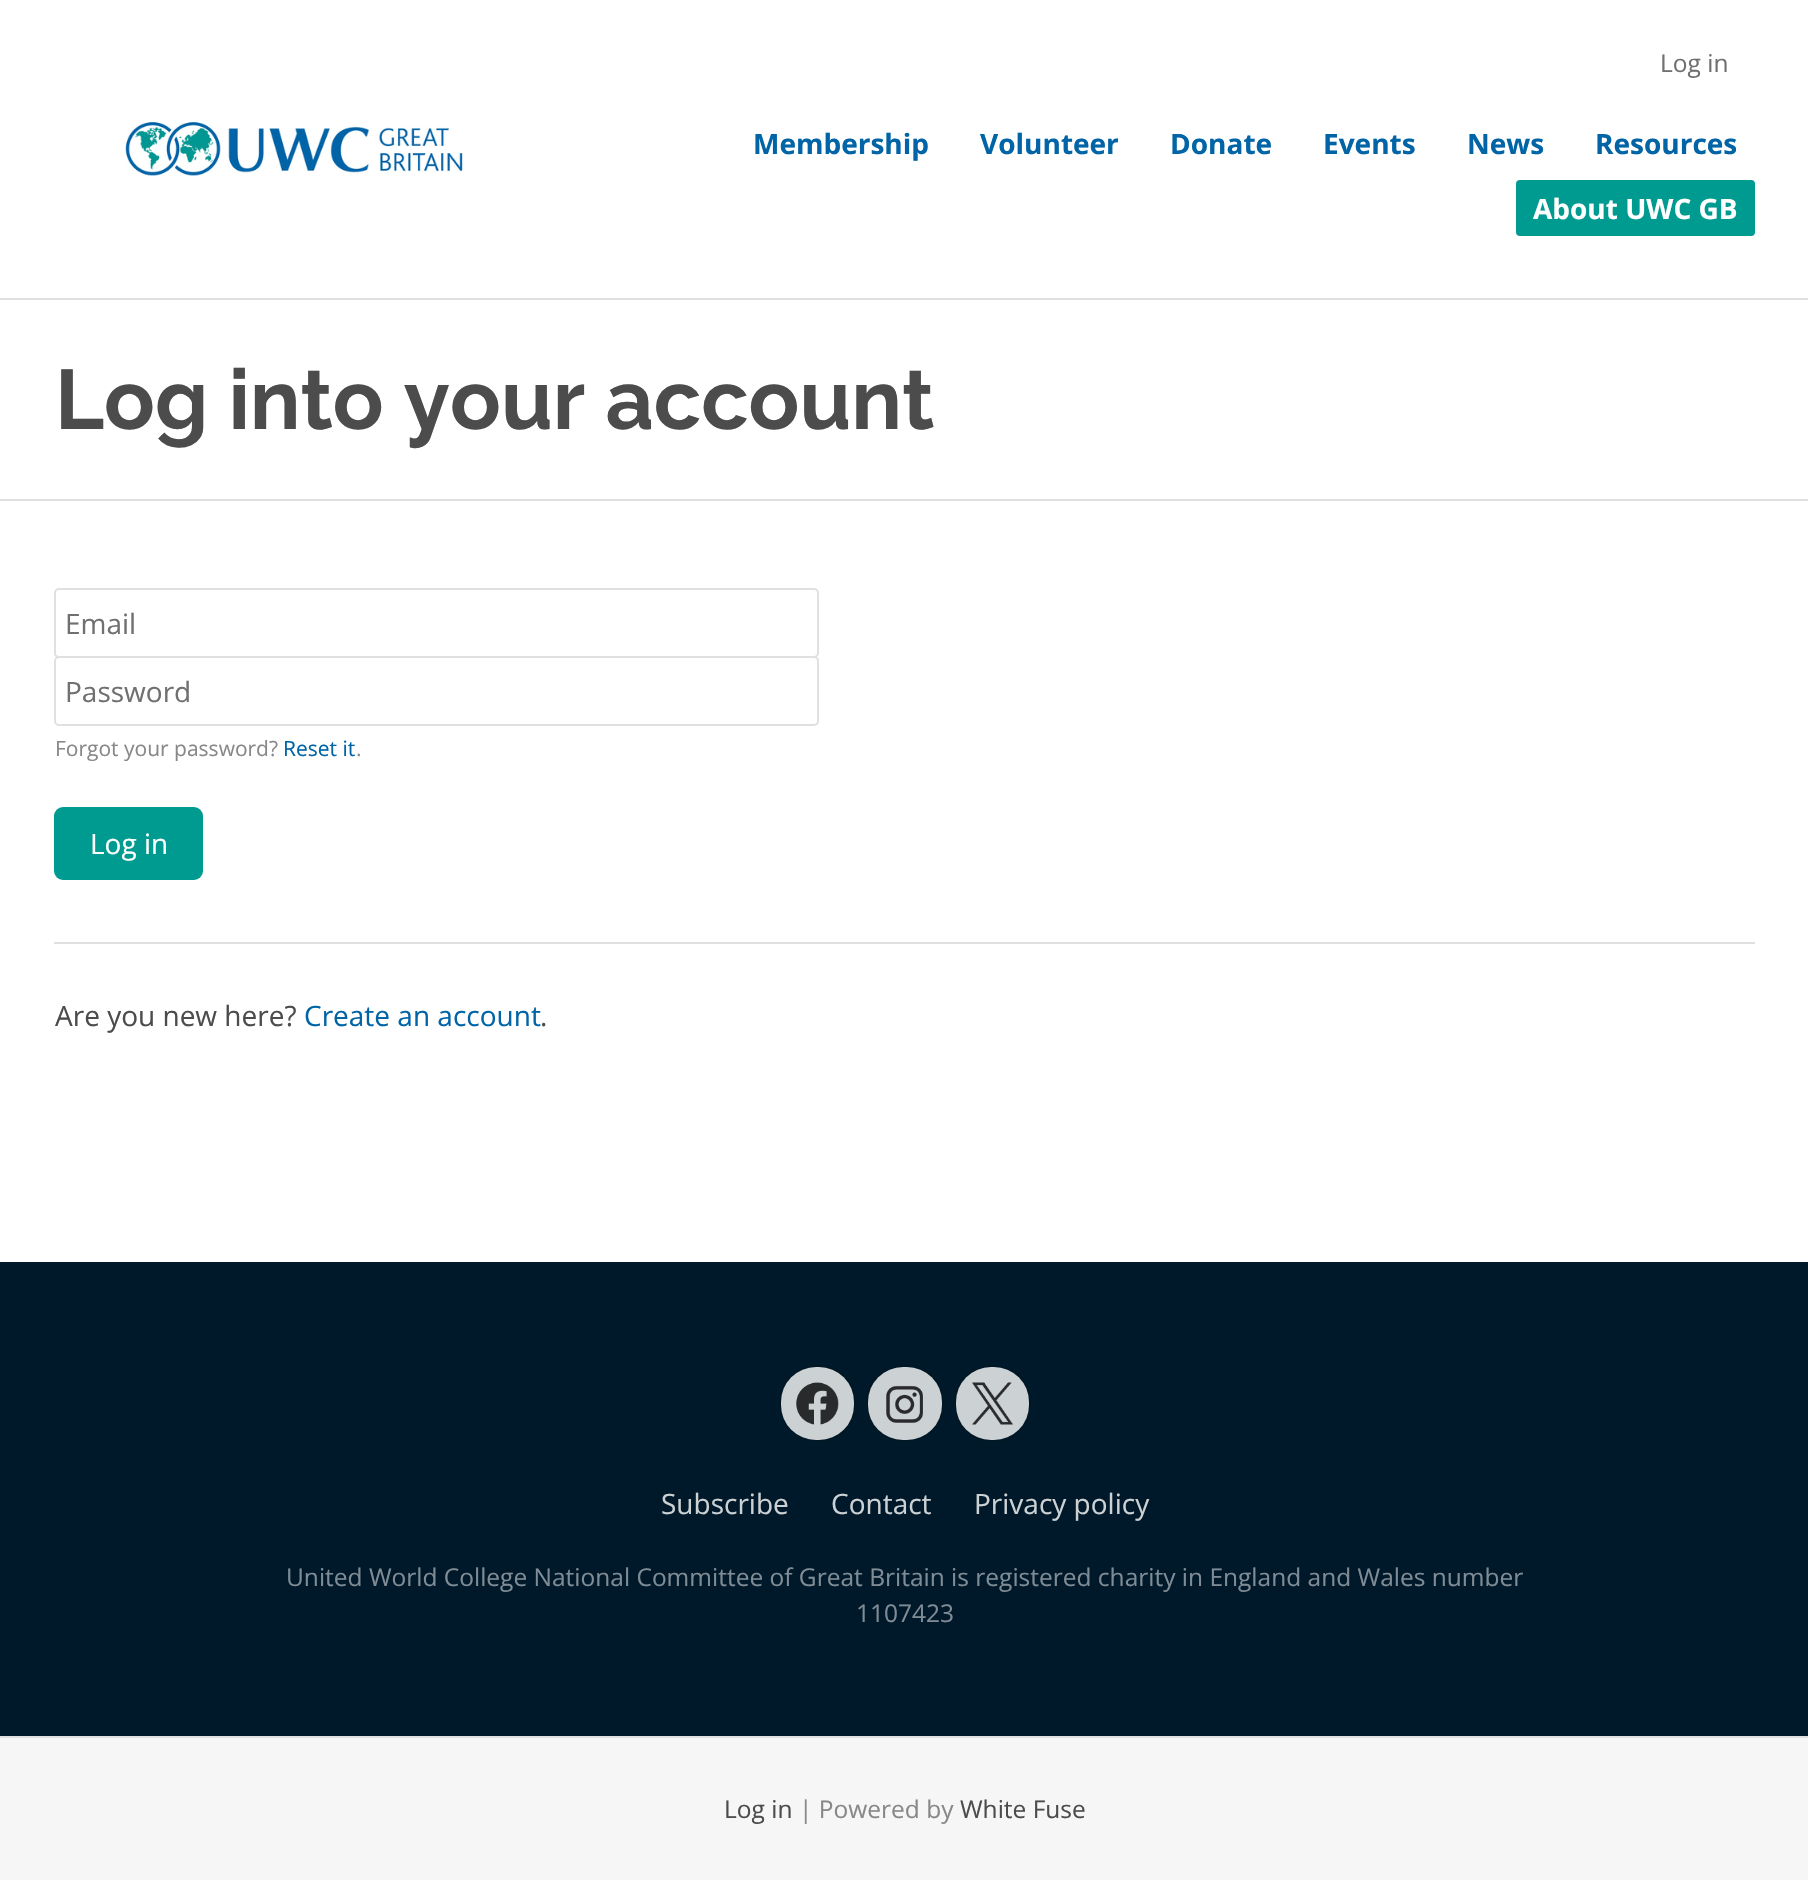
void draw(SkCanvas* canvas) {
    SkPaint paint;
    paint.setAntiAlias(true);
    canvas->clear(0xFFFFFFFF);
    canvas->drawImageRect(SkImages::DeferredFromEncodedData(SkData::MakeFromFileName("img1.png")), SkRect::MakeXYWH(125, 122, 338, 55), SkSamplingOptions());
    SkFont font1(fontMgr->matchFamilyStyle("Open Sans", SkFontStyle::Normal()), 24.5f);
    font1.setSubpixel(true);
    paint.setColor(0xFF707070);
    canvas->drawString("Log in", 1660, 72, font1, paint);
    SkFont font2(fontMgr->matchFamilyStyle("Open Sans", SkFontStyle::Bold()), 28);
    font2.setSubpixel(true);
    paint.setColor(0xFF0064A6);
    canvas->drawString("Membership", 753, 154, font2, paint);
    canvas->drawString("Volunteer", 980, 154, font2, paint);
    canvas->drawString("Donate", 1170, 154, font2, paint);
    canvas->drawString("Events", 1323, 154, font2, paint);
    canvas->drawString("News", 1467, 154, font2, paint);
    canvas->drawString("Resources", 1595, 154, font2, paint);
    paint.setColor(0xFF009B90);
    canvas->drawRoundRect(SkRect::MakeXYWH(1516, 180, 239, 56), 4, 4, paint);
    paint.setColor(0xFFFFFFFF);
    canvas->drawString("About UWC GB", 1533, 219, font2, paint);
    paint.setColor(0xFFE0E0E0);
    canvas->drawRect(SkRect::MakeXYWH(0, 298, 1808, 2), paint);
    canvas->drawRect(SkRect::MakeXYWH(0, 499, 1808, 2), paint);
    SkFont font3(fontMgr->matchFamilyStyle("Raleway", SkFontStyle::Bold()), 84);
    font3.setSubpixel(true);
    paint.setColor(0xFF4C4C4C);
    canvas->drawString("Log into your account", 55, 429, font3, paint);
    paint.setStyle(SkPaint::kStroke_Style);
    paint.setStrokeWidth(2);
    paint.setColor(0xFFE0E0E0);
    canvas->drawRoundRect(SkRect::MakeXYWH(55, 589, 763, 68), 4, 4, paint);
    SkFont font4(fontMgr->matchFamilyStyle("Open Sans", SkFontStyle::Normal()), 28);
    font4.setSubpixel(true);
    paint.setStyle(SkPaint::kFill_Style);
    paint.setColor(0xFF707070);
    canvas->drawString("Email", 65, 634, font4, paint);
    paint.setColor(0xFFFFFFFF);
    canvas->drawRoundRect(SkRect::MakeXYWH(55, 657, 763, 68), 4, 4, paint);
    paint.setStyle(SkPaint::kStroke_Style);
    paint.setColor(0xFFE0E0E0);
    canvas->drawRoundRect(SkRect::MakeXYWH(55, 657, 763, 68), 4, 4, paint);
    paint.setStyle(SkPaint::kFill_Style);
    paint.setColor(0xFF707070);
    canvas->drawString("Password", 65, 702, font4, paint);
    SkFont font5(fontMgr->matchFamilyStyle("Open Sans", SkFontStyle::Normal()), 21);
    font5.setSubpixel(true);
    paint.setColor(0xFF888888);
    canvas->drawString("Forgot your password?", 55, 756, font5, paint);
    paint.setColor(0xFF0064A6);
    canvas->drawString("Reset it", 283, 756, font5, paint);
    paint.setColor(0xFF888888);
    canvas->drawString(".", 356, 756, font5, paint);
    paint.setColor(0xFF009B90);
    canvas->drawRoundRect(SkRect::MakeXYWH(54, 807, 149, 73), 9, 9, paint);
    paint.setColor(0xFFFFFFFF);
    canvas->drawString("Log in", 90, 854, font4, paint);
    paint.setColor(0xFFE0E0E0);
    canvas->drawRect(SkRect::MakeXYWH(54, 942, 1701, 2), paint);
    paint.setColor(0xFF4C4C4C);
    canvas->drawString("Are you new here?", 55, 1026, font4, paint);
    paint.setColor(0xFF0064A6);
    canvas->drawString("Create an account", 304, 1026, font4, paint);
    paint.setColor(0xFF4C4C4C);
    canvas->drawString(".", 540, 1026, font4, paint);
    paint.setColor(0xFFE0E0E0);
    canvas->drawRect(SkRect::MakeXYWH(0, 1736, 1808, 2), paint);
    paint.setColor(0xFF00192A);
    canvas->drawRect(SkRect::MakeXYWH(0, 1262, 1808, 474), paint);
    paint.setColor(0x66000508);
    paint.setMaskFilter(SkMaskFilter::MakeBlur(kNormal_SkBlurStyle, 2));
    canvas->drawRoundRect(SkRect::MakeXYWH(781, 1367, 73, 73), 35, 35, paint);
    paint.setMaskFilter(nullptr);
    paint.setColor(0xFFCCD1D4);
    canvas->drawRoundRect(SkRect::MakeXYWH(781, 1367, 73, 73), 35, 35, paint);
    canvas->drawImageRect(SkImages::DeferredFromEncodedData(SkData::MakeFromFileName("img2.png")), SkRect::MakeXYWH(796, 1382, 43, 43), SkSamplingOptions());
    paint.setColor(0x66000508);
    paint.setMaskFilter(SkMaskFilter::MakeBlur(kNormal_SkBlurStyle, 2));
    canvas->drawRoundRect(SkRect::MakeXYWH(868, 1367, 74, 73), 35, 35, paint);
    paint.setMaskFilter(nullptr);
    paint.setColor(0xFFCCD1D4);
    canvas->drawRoundRect(SkRect::MakeXYWH(868, 1367, 74, 73), 35, 35, paint);
    canvas->drawImageRect(SkImages::DeferredFromEncodedData(SkData::MakeFromFileName("img3.png")), SkRect::MakeXYWH(886, 1385, 37, 38), SkSamplingOptions());
    paint.setColor(0x66000508);
    paint.setMaskFilter(SkMaskFilter::MakeBlur(kNormal_SkBlurStyle, 2));
    canvas->drawRoundRect(SkRect::MakeXYWH(956, 1367, 73, 73), 35, 35, paint);
    paint.setMaskFilter(nullptr);
    paint.setColor(0xFFCCD1D4);
    canvas->drawRoundRect(SkRect::MakeXYWH(956, 1367, 73, 73), 35, 35, paint);
    canvas->drawImageRect(SkImages::DeferredFromEncodedData(SkData::MakeFromFileName("img4.png")), SkRect::MakeXYWH(972, 1382, 42, 43), SkSamplingOptions());
    canvas->drawString("Subscribe", 661, 1514, font4, paint);
    canvas->drawString("Contact", 831, 1514, font4, paint);
    canvas->drawString("Privacy policy", 974, 1514, font4, paint);
    paint.setColor(0xFF808C95);
    canvas->drawString("United World College National Committee of Great Britain is registered charity in England and Wales number", 286, 1586, font1, paint);
    canvas->drawString("1107423", 856, 1622, font1, paint);
    paint.setColor(0xFFF6F6F6);
    canvas->drawRect(SkRect::MakeXYWH(0, 1738, 1808, 142), paint);
    paint.setColor(0xFF4C4C4C);
    canvas->drawString("Log in", 724, 1818, font1, paint);
    paint.setColor(0xFF888888);
    canvas->drawString("| Powered by", 799, 1818, font1, paint);
    paint.setColor(0xFF4C4C4C);
    canvas->drawString("White Fuse", 960, 1818, font1, paint);
}
